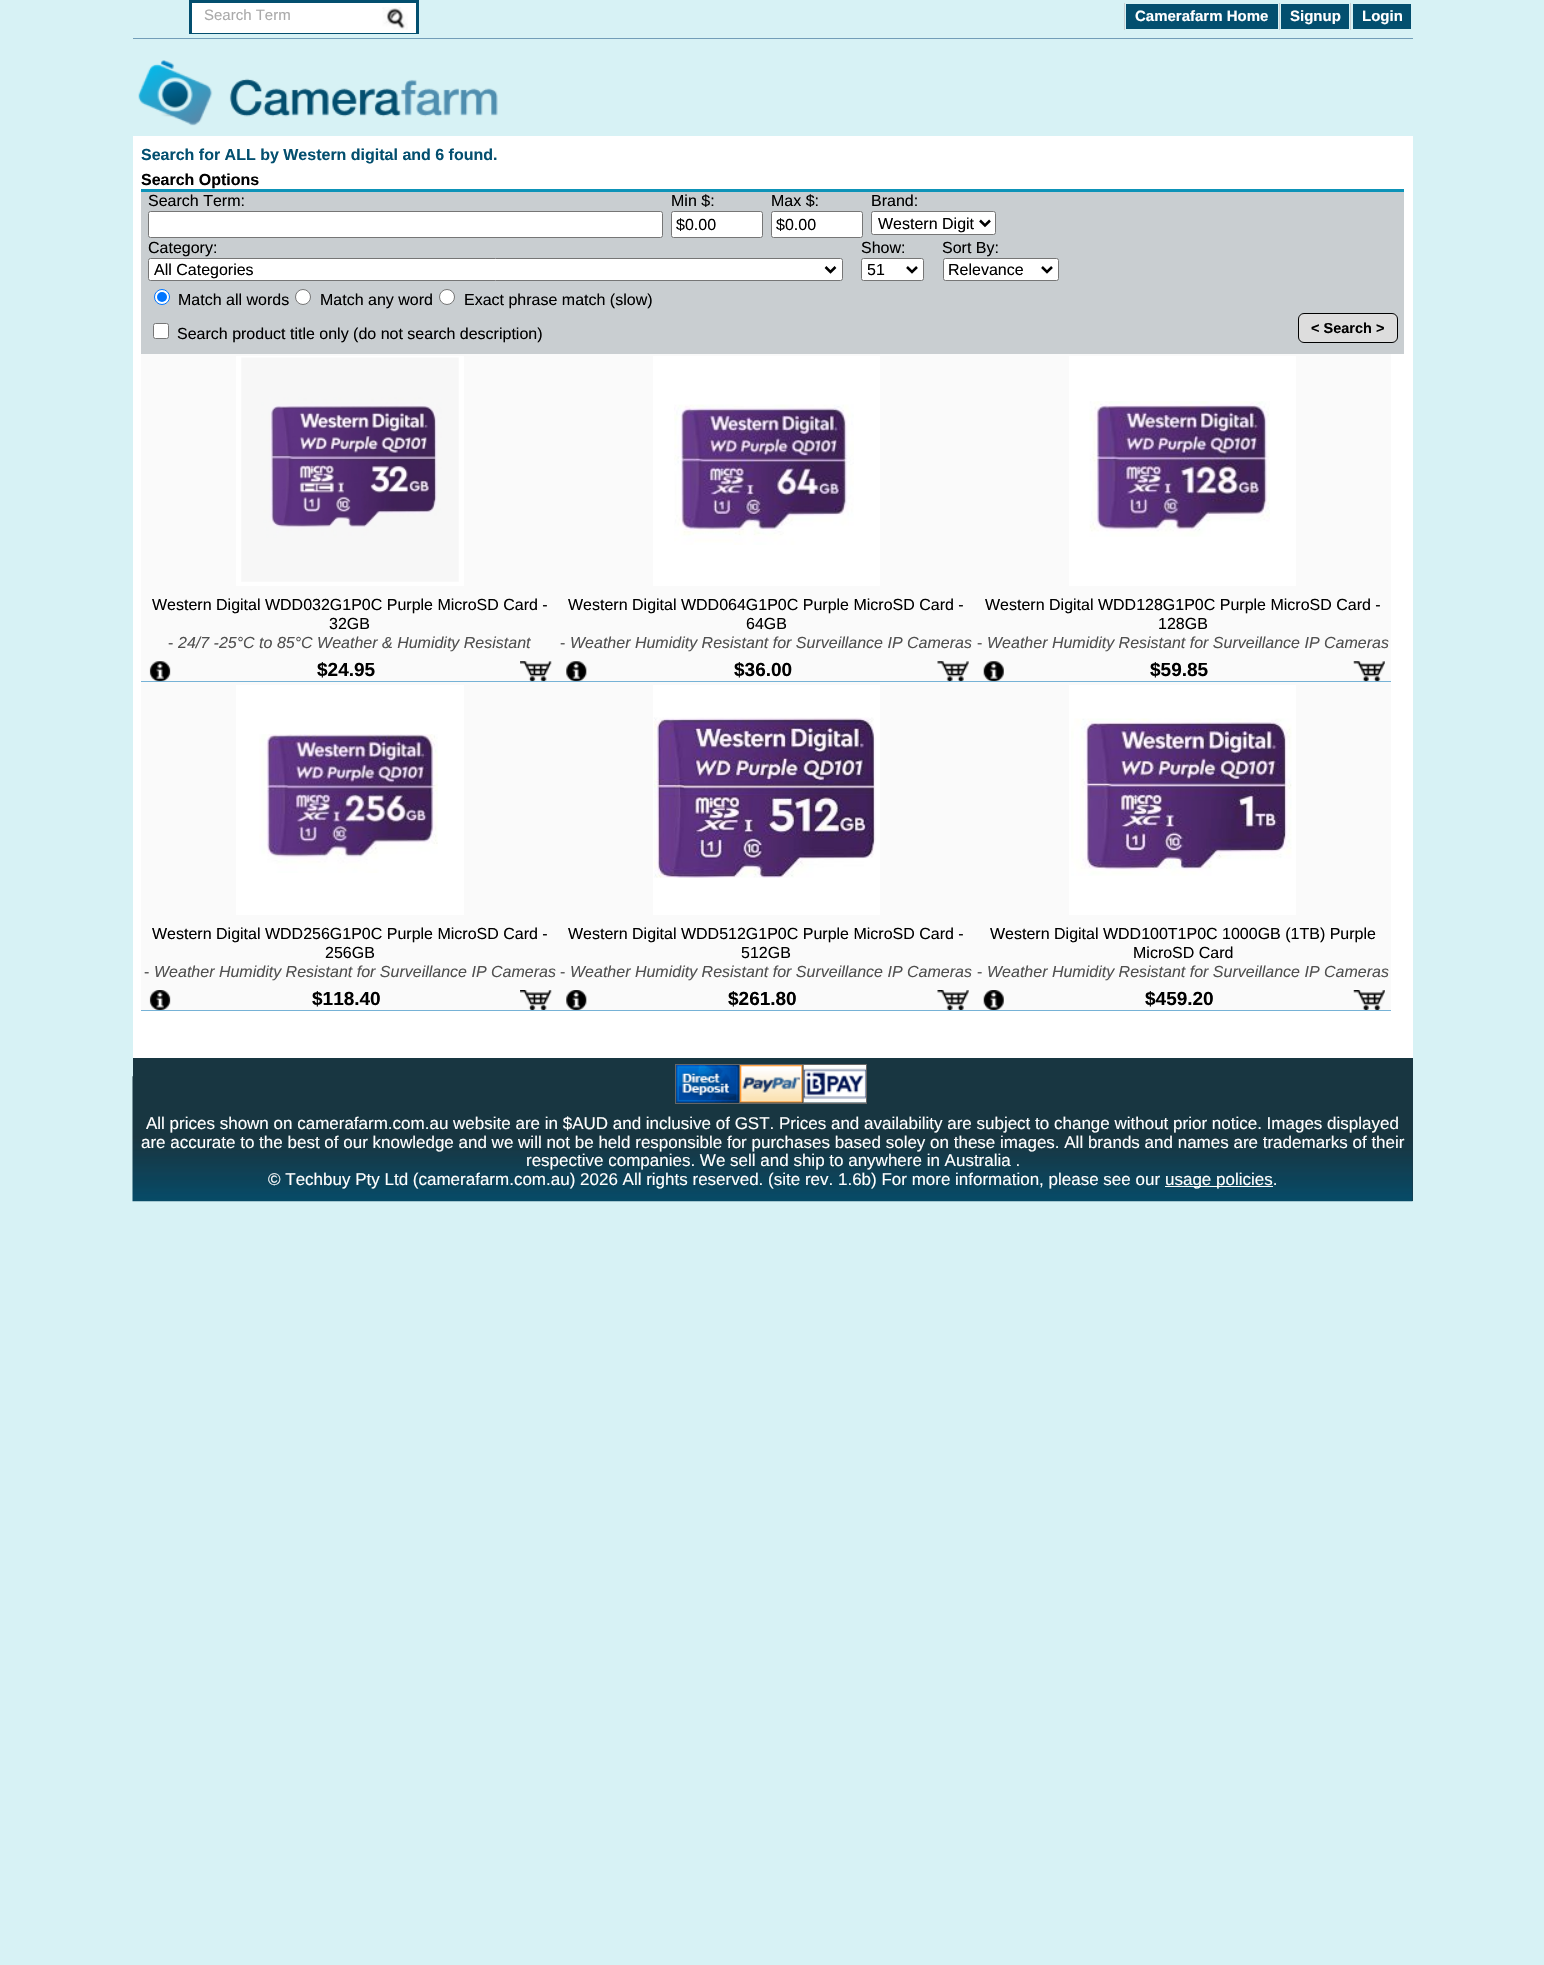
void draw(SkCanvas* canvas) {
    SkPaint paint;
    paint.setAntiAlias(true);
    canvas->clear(0xFFD7F2F5);
    paint.setColor(0xFF729EB8);
    canvas->drawRect(SkRect::MakeXYWH(133, 38, 1280, 1), paint);
    paint.setColor(0xFFFFFFFF);
    canvas->drawRect(SkRect::MakeXYWH(192, 3, 224, 30), paint);
    paint.setColor(0xFF034F6F);
    canvas->drawRect(SkRect::MakeXYWH(189, 0, 230, 3), paint);
    canvas->drawRect(SkRect::MakeXYWH(416, 0, 3, 34), paint);
    canvas->drawRect(SkRect::MakeXYWH(189, 33, 230, 1), paint);
    canvas->drawRect(SkRect::MakeXYWH(189, 0, 3, 34), paint);
    SkFont font1(fontMgr->matchFamilyStyle("Liberation Sans", SkFontStyle::Normal()), 15);
    font1.setSubpixel(true);
    paint.setColor(0xFFAAAAAA);
    canvas->drawString("Search Term", 204, 20, font1, paint);
    canvas->drawImageRect(SkImages::DeferredFromEncodedData(SkData::MakeFromFileName("img1.png")), SkRect::MakeXYWH(382, 7, 26, 23), SkSamplingOptions());
    paint.setColor(0xFFC9CED1);
    canvas->drawRect(SkRect::MakeXYWH(1124, 3, 1, 27), paint);
    paint.setColor(0xFF034F6F);
    canvas->drawRect(SkRect::MakeXYWH(1126, 4, 152, 25), paint);
    SkFont font2(fontMgr->matchFamilyStyle("Liberation Sans", SkFontStyle::Bold()), 15);
    font2.setSubpixel(true);
    paint.setColor(0xFFFFFFFF);
    canvas->drawString("Camerafarm Home", 1135, 21, font2, paint);
    paint.setColor(0xFFC9CED1);
    canvas->drawRect(SkRect::MakeXYWH(1279, 3, 1, 27), paint);
    paint.setColor(0xFF034F6F);
    canvas->drawRect(SkRect::MakeXYWH(1281, 4, 68, 25), paint);
    paint.setColor(0xFFFFFFFF);
    canvas->drawString("Signup", 1290, 21, font2, paint);
    paint.setColor(0xFFC9CED1);
    canvas->drawRect(SkRect::MakeXYWH(1350, 3, 1, 27), paint);
    paint.setColor(0xFF034F6F);
    canvas->drawRect(SkRect::MakeXYWH(1353, 4, 58, 25), paint);
    paint.setColor(0xFFFFFFFF);
    canvas->drawString("Login", 1362, 21, font2, paint);
    canvas->drawImageRect(SkImages::DeferredFromEncodedData(SkData::MakeFromFileName("img2.png")), SkRect::MakeXYWH(138, 60, 360, 66), SkSamplingOptions());
    canvas->drawRect(SkRect::MakeXYWH(133, 136, 1280, 922), paint);
    SkFont font3(fontMgr->matchFamilyStyle("Liberation Sans", SkFontStyle::Bold()), 16);
    font3.setSubpixel(true);
    paint.setColor(0xFF034F6F);
    canvas->drawString("Search for ALL by Western digital and 6 found.", 141, 160, font3, paint);
    paint.setColor(0xFF000000);
    canvas->drawString("Search Options", 141, 185, font3, paint);
    paint.setColor(0xFF0D93B8);
    canvas->drawRect(SkRect::MakeXYWH(141, 189, 1263, 3), paint);
    paint.setColor(0xFFC9CED1);
    canvas->drawRect(SkRect::MakeXYWH(141, 192, 1263, 162), paint);
    SkFont font4(fontMgr->matchFamilyStyle("Liberation Sans", SkFontStyle::Normal()), 16);
    font4.setSubpixel(true);
    paint.setColor(0xFF000000);
    canvas->drawString("Search Term:", 148, 206, font4, paint);
    paint.setColor(0xFFFFFFFF);
    canvas->drawRoundRect(SkRect::MakeXYWH(148.5f, 211.5f, 514, 26), 2, 2, paint);
    paint.setStyle(SkPaint::kStroke_Style);
    paint.setStrokeWidth(1);
    paint.setColor(0xFF767676);
    canvas->drawRoundRect(SkRect::MakeXYWH(148.5f, 211.5f, 514, 26), 2, 2, paint);
    paint.setStyle(SkPaint::kFill_Style);
    paint.setColor(0xFF000000);
    canvas->drawString("Min $:", 671, 206, font4, paint);
    paint.setColor(0xFFFFFFFF);
    canvas->drawRoundRect(SkRect::MakeXYWH(671.5f, 211.5f, 91, 26), 2, 2, paint);
    paint.setStyle(SkPaint::kStroke_Style);
    paint.setColor(0xFF767676);
    canvas->drawRoundRect(SkRect::MakeXYWH(671.5f, 211.5f, 91, 26), 2, 2, paint);
    paint.setStyle(SkPaint::kFill_Style);
    paint.setColor(0xFF000000);
    canvas->drawString("$0.00", 676, 230, font4, paint);
    canvas->drawString("Max $:", 771, 206, font4, paint);
    paint.setColor(0xFFFFFFFF);
    canvas->drawRoundRect(SkRect::MakeXYWH(771.5f, 211.5f, 91, 26), 2, 2, paint);
    paint.setStyle(SkPaint::kStroke_Style);
    paint.setColor(0xFF767676);
    canvas->drawRoundRect(SkRect::MakeXYWH(771.5f, 211.5f, 91, 26), 2, 2, paint);
    paint.setStyle(SkPaint::kFill_Style);
    paint.setColor(0xFF000000);
    canvas->drawString("$0.00", 776, 230, font4, paint);
    canvas->drawString("Brand:", 871, 206, font4, paint);
    paint.setColor(0xFFFFFFFF);
    canvas->drawRoundRect(SkRect::MakeXYWH(871.5f, 211.5f, 124, 23), 2, 2, paint);
    paint.setStyle(SkPaint::kStroke_Style);
    paint.setColor(0xFF767676);
    canvas->drawRoundRect(SkRect::MakeXYWH(871.5f, 211.5f, 124, 23), 2, 2, paint);
    paint.setStrokeWidth(2.5f);
    paint.setColor(0xFF000000);
    canvas->drawPath(SkPathBuilder().moveTo(980, 220.5f).lineTo(985, 225.5f).lineTo(990, 220.5f).detach(), paint);
    paint.setStyle(SkPaint::kFill_Style);
    canvas->drawString("Western Digit", 878, 229, font4, paint);
    canvas->drawString("Category:", 148, 253, font4, paint);
    paint.setColor(0xFFFFFFFF);
    canvas->drawRoundRect(SkRect::MakeXYWH(148.5f, 258.5f, 694, 22), 2, 2, paint);
    paint.setStyle(SkPaint::kStroke_Style);
    paint.setStrokeWidth(1);
    paint.setColor(0xFF767676);
    canvas->drawRoundRect(SkRect::MakeXYWH(148.5f, 258.5f, 694, 22), 2, 2, paint);
    paint.setStrokeWidth(2.5f);
    paint.setColor(0xFF000000);
    canvas->drawPath(SkPathBuilder().moveTo(825.5f, 267).lineTo(830.5f, 272).lineTo(835.5f, 267).detach(), paint);
    paint.setStyle(SkPaint::kFill_Style);
    canvas->drawString("All Categories", 154, 275, font4, paint);
    canvas->drawString("Show:", 861, 253, font4, paint);
    paint.setColor(0xFFFFFFFF);
    canvas->drawRoundRect(SkRect::MakeXYWH(861.5f, 258.5f, 62, 22), 2, 2, paint);
    paint.setStyle(SkPaint::kStroke_Style);
    paint.setStrokeWidth(1);
    paint.setColor(0xFF767676);
    canvas->drawRoundRect(SkRect::MakeXYWH(861.5f, 258.5f, 62, 22), 2, 2, paint);
    paint.setStrokeWidth(2.5f);
    paint.setColor(0xFF000000);
    canvas->drawPath(SkPathBuilder().moveTo(907, 267).lineTo(912, 272).lineTo(917, 267).detach(), paint);
    canvas->save();
    canvas->clipRect(SkRect::MakeXYWH(868, 259, 35, 21));
    paint.setStyle(SkPaint::kFill_Style);
    canvas->drawString("51", 867, 275, font4, paint);
    canvas->restore();
    canvas->drawString("Sort By:", 942, 253, font4, paint);
    paint.setColor(0xFFFFFFFF);
    canvas->drawRoundRect(SkRect::MakeXYWH(943.5f, 258.5f, 115, 22), 2, 2, paint);
    paint.setStyle(SkPaint::kStroke_Style);
    paint.setStrokeWidth(1);
    paint.setColor(0xFF767676);
    canvas->drawRoundRect(SkRect::MakeXYWH(943.5f, 258.5f, 115, 22), 2, 2, paint);
    paint.setStrokeWidth(2.5f);
    paint.setColor(0xFF000000);
    canvas->drawPath(SkPathBuilder().moveTo(1042, 267).lineTo(1047, 272).lineTo(1052, 267).detach(), paint);
    paint.setStyle(SkPaint::kFill_Style);
    canvas->drawString("Relevance", 948, 275, font4, paint);
    paint.setColor(0xFFFFFFFF);
    canvas->drawCircle(162, 297, 7.5f, paint);
    paint.setStyle(SkPaint::kStroke_Style);
    paint.setStrokeWidth(1);
    paint.setColor(0xFF0075FF);
    canvas->drawCircle(162, 297, 7.5f, paint);
    paint.setStyle(SkPaint::kFill_Style);
    canvas->drawCircle(162, 297, 5, paint);
    paint.setColor(0xFF000000);
    canvas->drawString("Match all words", 178, 305, font4, paint);
    paint.setColor(0xFFFFFFFF);
    canvas->drawCircle(303, 297, 7.5f, paint);
    paint.setStyle(SkPaint::kStroke_Style);
    paint.setColor(0xFF767676);
    canvas->drawCircle(303, 297, 7.5f, paint);
    paint.setStyle(SkPaint::kFill_Style);
    paint.setColor(0xFF000000);
    canvas->drawString("Match any word", 320, 305, font4, paint);
    paint.setColor(0xFFFFFFFF);
    canvas->drawCircle(447, 297, 7.5f, paint);
    paint.setStyle(SkPaint::kStroke_Style);
    paint.setColor(0xFF767676);
    canvas->drawCircle(447, 297, 7.5f, paint);
    paint.setStyle(SkPaint::kFill_Style);
    paint.setColor(0xFF000000);
    canvas->drawString("Exact phrase match (slow)", 464, 305, font4, paint);
    paint.setColor(0xFFFFFFFF);
    canvas->drawRoundRect(SkRect::MakeXYWH(153.5f, 323.5f, 15, 15), 2, 2, paint);
    paint.setStyle(SkPaint::kStroke_Style);
    paint.setColor(0xFF767676);
    canvas->drawRoundRect(SkRect::MakeXYWH(153.5f, 323.5f, 15, 15), 2, 2, paint);
    paint.setStyle(SkPaint::kFill_Style);
    paint.setColor(0xFF000000);
    canvas->drawString("Search product title only (do not search description)", 177, 339, font4, paint);
    paint.setColor(0xFFDDDDDD);
    canvas->drawRoundRect(SkRect::MakeXYWH(1298.5f, 313.5f, 99, 29), 5.5f, 5.5f, paint);
    paint.setStyle(SkPaint::kStroke_Style);
    paint.setColor(0xFF000000);
    canvas->drawRoundRect(SkRect::MakeXYWH(1298.5f, 313.5f, 99, 29), 5.5f, 5.5f, paint);
    SkFont font5(fontMgr->matchFamilyStyle("Liberation Sans", SkFontStyle::Bold()), 14.5f);
    font5.setSubpixel(true);
    paint.setStyle(SkPaint::kFill_Style);
    canvas->drawString("< Search >", 1311, 333, font5, paint);
    paint.setColor(0xFFFAFAFA);
    canvas->drawRect(SkRect::MakeXYWH(141, 354, 1250, 329), paint);
    paint.setColor(0xFF76B2D6);
    canvas->drawRect(SkRect::MakeXYWH(141, 681, 1250, 1), paint);
    paint.setColor(0xFFFFFFFF);
    canvas->drawRect(SkRect::MakeXYWH(236, 356, 228, 230), paint);
    canvas->drawImageRect(SkImages::DeferredFromEncodedData(SkData::MakeFromFileName("img3.png")), SkRect::MakeXYWH(241, 357, 218, 225), SkSamplingOptions());
    paint.setColor(0xFF000000);
    canvas->drawString("Western Digital WDD032G1P0C Purple MicroSD Card -", 152, 610, font4, paint);
    canvas->drawString("32GB", 329, 629, font4, paint);
    paint.setColor(0xFF505050);
    canvas->drawString("-", 168, 648, font4, paint);
    SkFont font6(fontMgr->matchFamilyStyle("Liberation Sans", SkFontStyle::Italic()), 16);
    font6.setSubpixel(true);
    canvas->drawString("24/7 -25°C to 85°C Weather & Humidity Resistant", 178, 648, font6, paint);
    canvas->drawImageRect(SkImages::DeferredFromEncodedData(SkData::MakeFromFileName("img4.png")), SkRect::MakeXYWH(149, 661, 22, 21), SkSamplingOptions());
    SkFont font7(fontMgr->matchFamilyStyle("Liberation Sans", SkFontStyle::Bold()), 19);
    font7.setSubpixel(true);
    paint.setColor(0xFF000000);
    canvas->drawString("$24.95", 317, 676, font7, paint);
    canvas->drawImageRect(SkImages::DeferredFromEncodedData(SkData::MakeFromFileName("img5.png")), SkRect::MakeXYWH(520, 661, 32, 21), SkSamplingOptions());
    paint.setColor(0xFFFFFFFF);
    canvas->drawRect(SkRect::MakeXYWH(653, 356, 227, 230), paint);
    canvas->drawImageRect(SkImages::DeferredFromEncodedData(SkData::MakeFromFileName("img6.png")), SkRect::MakeXYWH(674, 404, 180, 141), SkSamplingOptions());
    paint.setColor(0xFF000000);
    canvas->drawString("Western Digital WDD064G1P0C Purple MicroSD Card -", 568, 610, font4, paint);
    canvas->drawString("64GB", 746, 629, font4, paint);
    paint.setColor(0xFF505050);
    canvas->drawString("-", 560, 648, font4, paint);
    canvas->drawString("Weather Humidity Resistant for Surveillance IP Cameras", 570, 648, font6, paint);
    canvas->drawImageRect(SkImages::DeferredFromEncodedData(SkData::MakeFromFileName("img7.png")), SkRect::MakeXYWH(566, 661, 21, 21), SkSamplingOptions());
    paint.setColor(0xFF000000);
    canvas->drawString("$36.00", 734, 676, font7, paint);
    canvas->drawImageRect(SkImages::DeferredFromEncodedData(SkData::MakeFromFileName("img8.png")), SkRect::MakeXYWH(937, 661, 32, 21), SkSamplingOptions());
    paint.setColor(0xFFFFFFFF);
    canvas->drawRect(SkRect::MakeXYWH(1069, 356, 227, 230), paint);
    canvas->drawImageRect(SkImages::DeferredFromEncodedData(SkData::MakeFromFileName("img9.png")), SkRect::MakeXYWH(1089, 401, 181, 136), SkSamplingOptions());
    paint.setColor(0xFF000000);
    canvas->drawString("Western Digital WDD128G1P0C Purple MicroSD Card -", 985, 610, font4, paint);
    canvas->drawString("128GB", 1158, 629, font4, paint);
    paint.setColor(0xFF505050);
    canvas->drawString("-", 977, 648, font4, paint);
    canvas->drawString("Weather Humidity Resistant for Surveillance IP Cameras", 987, 648, font6, paint);
    canvas->drawImageRect(SkImages::DeferredFromEncodedData(SkData::MakeFromFileName("img10.png")), SkRect::MakeXYWH(983, 661, 21, 21), SkSamplingOptions());
    paint.setColor(0xFF000000);
    canvas->drawString("$59.85", 1150, 676, font7, paint);
    canvas->drawImageRect(SkImages::DeferredFromEncodedData(SkData::MakeFromFileName("img11.png")), SkRect::MakeXYWH(1353, 661, 32, 21), SkSamplingOptions());
    paint.setColor(0xFFFAFAFA);
    canvas->drawRect(SkRect::MakeXYWH(141, 683, 1250, 327), paint);
    paint.setColor(0xFF76B2D6);
    canvas->drawRect(SkRect::MakeXYWH(141, 1010, 1250, 1), paint);
    paint.setColor(0xFFFFFFFF);
    canvas->drawRect(SkRect::MakeXYWH(236, 685, 228, 230), paint);
    canvas->drawImageRect(SkImages::DeferredFromEncodedData(SkData::MakeFromFileName("img12.png")), SkRect::MakeXYWH(259, 734, 179, 139), SkSamplingOptions());
    paint.setColor(0xFF000000);
    canvas->drawString("Western Digital WDD256G1P0C Purple MicroSD Card -", 152, 939, font4, paint);
    canvas->drawString("256GB", 325, 958, font4, paint);
    paint.setColor(0xFF505050);
    canvas->drawString("-", 144, 977, font4, paint);
    canvas->drawString("Weather Humidity Resistant for Surveillance IP Cameras", 154, 977, font6, paint);
    canvas->drawImageRect(SkImages::DeferredFromEncodedData(SkData::MakeFromFileName("img13.png")), SkRect::MakeXYWH(149, 990, 22, 20), SkSamplingOptions());
    paint.setColor(0xFF000000);
    canvas->drawString("$118.40", 312, 1005, font7, paint);
    canvas->drawImageRect(SkImages::DeferredFromEncodedData(SkData::MakeFromFileName("img14.png")), SkRect::MakeXYWH(520, 990, 32, 20), SkSamplingOptions());
    paint.setColor(0xFFFFFFFF);
    canvas->drawRect(SkRect::MakeXYWH(653, 685, 227, 230), paint);
    canvas->drawImageRect(SkImages::DeferredFromEncodedData(SkData::MakeFromFileName("img15.png")), SkRect::MakeXYWH(653, 717, 223, 161), SkSamplingOptions());
    paint.setColor(0xFF000000);
    canvas->drawString("Western Digital WDD512G1P0C Purple MicroSD Card -", 568, 939, font4, paint);
    canvas->drawString("512GB", 741, 958, font4, paint);
    paint.setColor(0xFF505050);
    canvas->drawString("-", 560, 977, font4, paint);
    canvas->drawString("Weather Humidity Resistant for Surveillance IP Cameras", 570, 977, font6, paint);
    canvas->drawImageRect(SkImages::DeferredFromEncodedData(SkData::MakeFromFileName("img16.png")), SkRect::MakeXYWH(566, 990, 21, 20), SkSamplingOptions());
    paint.setColor(0xFF000000);
    canvas->drawString("$261.80", 728, 1005, font7, paint);
    canvas->drawImageRect(SkImages::DeferredFromEncodedData(SkData::MakeFromFileName("img17.png")), SkRect::MakeXYWH(937, 990, 32, 20), SkSamplingOptions());
    paint.setColor(0xFFFFFFFF);
    canvas->drawRect(SkRect::MakeXYWH(1069, 685, 227, 230), paint);
    canvas->drawImageRect(SkImages::DeferredFromEncodedData(SkData::MakeFromFileName("img18.png")), SkRect::MakeXYWH(1071, 718, 221, 158), SkSamplingOptions());
    paint.setColor(0xFF000000);
    canvas->drawString("Western Digital WDD100T1P0C 1000GB (1TB) Purple", 990, 939, font4, paint);
    canvas->drawString("MicroSD Card", 1133, 958, font4, paint);
    paint.setColor(0xFF505050);
    canvas->drawString("-", 977, 977, font4, paint);
    canvas->drawString("Weather Humidity Resistant for Surveillance IP Cameras", 987, 977, font6, paint);
    canvas->drawImageRect(SkImages::DeferredFromEncodedData(SkData::MakeFromFileName("img19.png")), SkRect::MakeXYWH(983, 990, 21, 20), SkSamplingOptions());
    paint.setColor(0xFF000000);
    canvas->drawString("$459.20", 1145, 1005, font7, paint);
    canvas->drawImageRect(SkImages::DeferredFromEncodedData(SkData::MakeFromFileName("img20.png")), SkRect::MakeXYWH(1353, 990, 32, 20), SkSamplingOptions());
    paint.setColor(0xFF183641);
    canvas->drawRect(SkRect::MakeXYWH(133, 1058, 1280, 143), paint);
    canvas->drawImageRect(SkImages::DeferredFromEncodedData(SkData::MakeFromFileName("img21.png")), SkRect::MakeXYWH(132, 1076, 1281, 126), SkSamplingOptions());
    paint.setColor(0xFF666666);
    canvas->drawRect(SkRect::MakeXYWH(675, 1064, 191, 1), paint);
    canvas->drawRect(SkRect::MakeXYWH(675, 1103, 191, 1), paint);
    canvas->drawRect(SkRect::MakeXYWH(675, 1064, 1, 40), paint);
    canvas->drawImageRect(SkImages::DeferredFromEncodedData(SkData::MakeFromFileName("img22.png")), SkRect::MakeXYWH(676, 1065, 63, 38), SkSamplingOptions());
    canvas->drawRect(SkRect::MakeXYWH(739, 1064, 1, 40), paint);
    canvas->drawImageRect(SkImages::DeferredFromEncodedData(SkData::MakeFromFileName("img23.png")), SkRect::MakeXYWH(740, 1065, 63, 38), SkSamplingOptions());
    canvas->drawRect(SkRect::MakeXYWH(803, 1064, 1, 40), paint);
    canvas->drawRect(SkRect::MakeXYWH(866, 1064, 1, 40), paint);
    canvas->drawImageRect(SkImages::DeferredFromEncodedData(SkData::MakeFromFileName("img24.png")), SkRect::MakeXYWH(803, 1065, 63, 38), SkSamplingOptions());
    SkFont font8(fontMgr->matchFamilyStyle("Liberation Sans", SkFontStyle::Normal()), 17);
    font8.setSubpixel(true);
    paint.setColor(0xFFFFFFFF);
    canvas->drawString("All prices shown on camerafarm.com.au website are in $AUD and inclusive of GST.", 146, 1129, font8, paint);
    canvas->drawString("Prices and availability are subject to change without prior notice. Images displayed", 779, 1129, font8, paint);
    canvas->drawString("are accurate to the best of our knowledge and we will not be held responsible for purchases based soley on these images. All brands and names are trademarks of their", 141, 1148, font8, paint);
    canvas->drawString("respective companies. We sell and ship to anywhere in Australia .", 526, 1166, font8, paint);
    canvas->drawString("© Techbuy Pty Ltd (camerafarm.com.au) 2026 All rights reserved. (site rev. 1.6b) For more", 268, 1185, font8, paint);
    canvas->drawString("information, please see our", 955, 1185, font8, paint);
    canvas->drawRect(SkRect::MakeXYWH(1165, 1186, 108, 1), paint);
    canvas->drawString("usage policies.", 1165, 1185, font8, paint);
}
